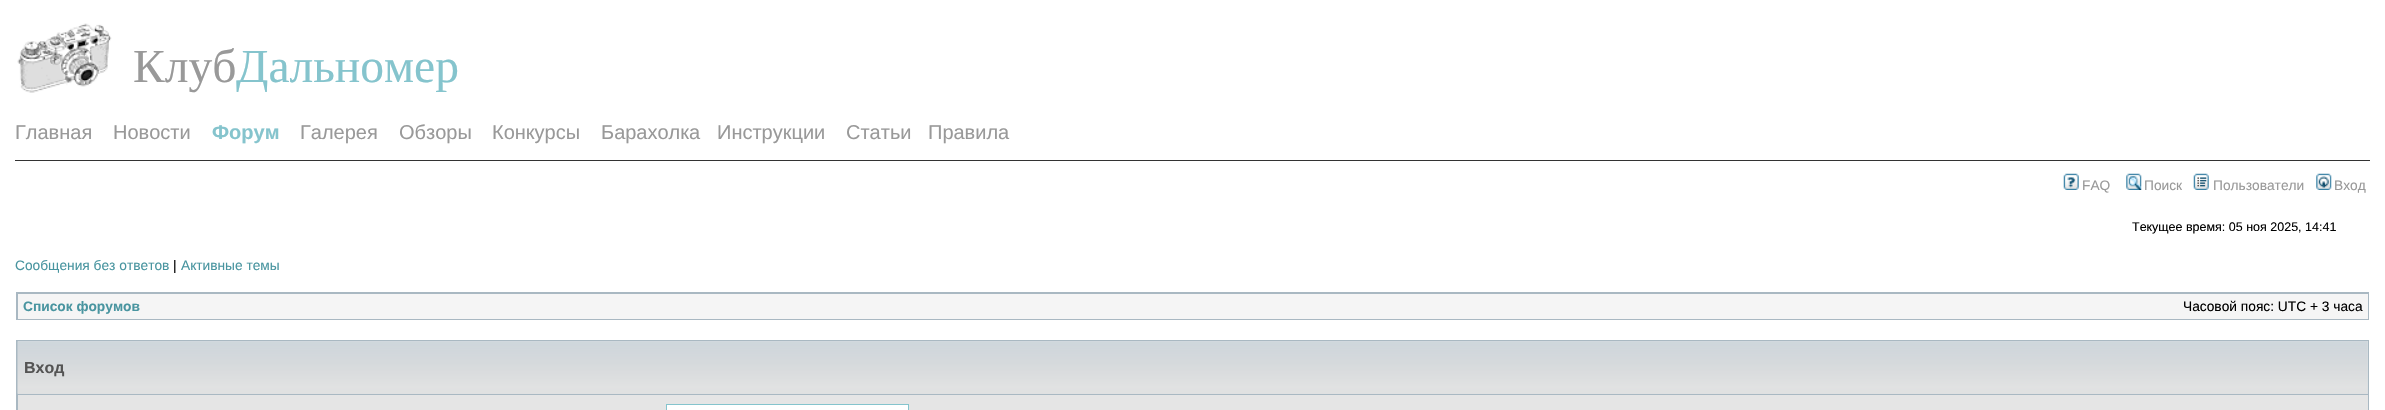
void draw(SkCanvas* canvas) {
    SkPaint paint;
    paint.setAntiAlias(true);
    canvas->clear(0xFFFFFFFF);
    canvas->drawImageRect(SkImages::DeferredFromEncodedData(SkData::MakeFromFileName("img1.png")), SkRect::MakeXYWH(17, 23, 95, 70), SkSamplingOptions());
    SkFont font1(fontMgr->matchFamilyStyle("Liberation Serif", SkFontStyle::Normal()), 47.5f);
    font1.setSubpixel(true);
    paint.setColor(0xFF999999);
    canvas->drawString("Клуб", 133, 82, font1, paint);
    paint.setColor(0xFF85C4CD);
    canvas->drawString("Дальномер", 236, 82, font1, paint);
    paint.setColor(0xFF333333);
    canvas->drawRect(SkRect::MakeXYWH(15, 160, 2355, 1), paint);
    SkFont font2(fontMgr->matchFamilyStyle("Liberation Sans", SkFontStyle::Normal()), 20);
    font2.setSubpixel(true);
    paint.setColor(0xFF999999);
    canvas->drawString("Главная", 15, 139, font2, paint);
    canvas->drawString("Новости", 113, 139, font2, paint);
    SkFont font3(fontMgr->matchFamilyStyle("Liberation Sans", SkFontStyle::Bold()), 20);
    font3.setSubpixel(true);
    paint.setColor(0xFF85C4CD);
    canvas->drawString("Форум", 212, 139, font3, paint);
    paint.setColor(0xFF999999);
    canvas->drawString("Галерея", 300, 139, font2, paint);
    canvas->drawString("Обзоры", 399, 139, font2, paint);
    canvas->drawString("Конкурсы", 492, 139, font2, paint);
    canvas->drawString("Барахолка", 601, 139, font2, paint);
    canvas->drawString("Инструкции", 717, 139, font2, paint);
    canvas->drawString("Статьи", 846, 139, font2, paint);
    canvas->drawString("Правила", 928, 139, font2, paint);
    canvas->drawImageRect(SkImages::DeferredFromEncodedData(SkData::MakeFromFileName("img2.png")), SkRect::MakeXYWH(2063, 173, 16, 17), SkSamplingOptions());
    SkFont font4(fontMgr->matchFamilyStyle("Liberation Sans", SkFontStyle::Normal()), 13.75f);
    font4.setSubpixel(true);
    canvas->drawString("FAQ", 2082, 190, font4, paint);
    canvas->drawImageRect(SkImages::DeferredFromEncodedData(SkData::MakeFromFileName("img3.png")), SkRect::MakeXYWH(2126, 173, 16, 17), SkSamplingOptions());
    canvas->drawString("Поиск", 2144, 190, font4, paint);
    canvas->drawImageRect(SkImages::DeferredFromEncodedData(SkData::MakeFromFileName("img4.png")), SkRect::MakeXYWH(2193, 173, 16, 17), SkSamplingOptions());
    canvas->drawString("Пользователи", 2213, 190, font4, paint);
    canvas->drawImageRect(SkImages::DeferredFromEncodedData(SkData::MakeFromFileName("img5.png")), SkRect::MakeXYWH(2316, 173, 16, 17), SkSamplingOptions());
    canvas->drawString("Вход", 2334, 190, font4, paint);
    SkFont font5(fontMgr->matchFamilyStyle("Liberation Sans", SkFontStyle::Normal()), 12.5f);
    font5.setSubpixel(true);
    paint.setColor(0xFF000000);
    canvas->drawString("Текущее время: 05 ноя 2025, 14:41", 2132, 231, font5, paint);
    paint.setColor(0xFF4995A0);
    canvas->drawString("Сообщения без ответов", 15, 270, font4, paint);
    paint.setColor(0xFF000000);
    canvas->drawString("|", 173, 270, font4, paint);
    paint.setColor(0xFF4995A0);
    canvas->drawString("Активные темы", 181, 270, font4, paint);
    paint.setColor(0xFFA9B8C2);
    canvas->drawRect(SkRect::MakeXYWH(16, 292, 2353, 28), paint);
    paint.setColor(0xFFF5F5F5);
    canvas->drawRect(SkRect::MakeXYWH(18, 294, 2350, 25), paint);
    SkFont font6(fontMgr->matchFamilyStyle("Liberation Sans", SkFontStyle::Bold()), 13.75f);
    font6.setSubpixel(true);
    paint.setColor(0xFF4995A0);
    canvas->drawString("Список форумов", 23, 311, font6, paint);
    paint.setColor(0xFF000000);
    canvas->drawString("Часовой пояс: UTC + 3 часа", 2183, 311, font4, paint);
    paint.setColor(0xFFA9B8C2);
    canvas->drawRect(SkRect::MakeXYWH(16, 340, 2353, 70), paint);
    paint.setColor(0xFFD9DEE2);
    canvas->drawRect(SkRect::MakeXYWH(18, 341, 2350, 53), paint);
    canvas->drawImageRect(SkImages::DeferredFromEncodedData(SkData::MakeFromFileName("img6.png")), SkRect::MakeXYWH(17, 341, 2351, 53), SkSamplingOptions());
    SkFont font7(fontMgr->matchFamilyStyle("Liberation Sans", SkFontStyle::Bold()), 16);
    font7.setSubpixel(true);
    paint.setColor(0xFF545454);
    canvas->drawString("Вход", 24, 373, font7, paint);
    paint.setColor(0xFFE5E5E5);
    canvas->drawRect(SkRect::MakeXYWH(18, 395, 2350, 15), paint);
    paint.setColor(0xFFFFFFFF);
    canvas->drawRect(SkRect::MakeXYWH(666.5f, 404.5f, 242, 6), paint);
    paint.setStyle(SkPaint::kStroke_Style);
    paint.setStrokeWidth(1);
    paint.setColor(0xFF85C4CD);
    canvas->drawRect(SkRect::MakeXYWH(666.5f, 404.5f, 242, 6), paint);
}
